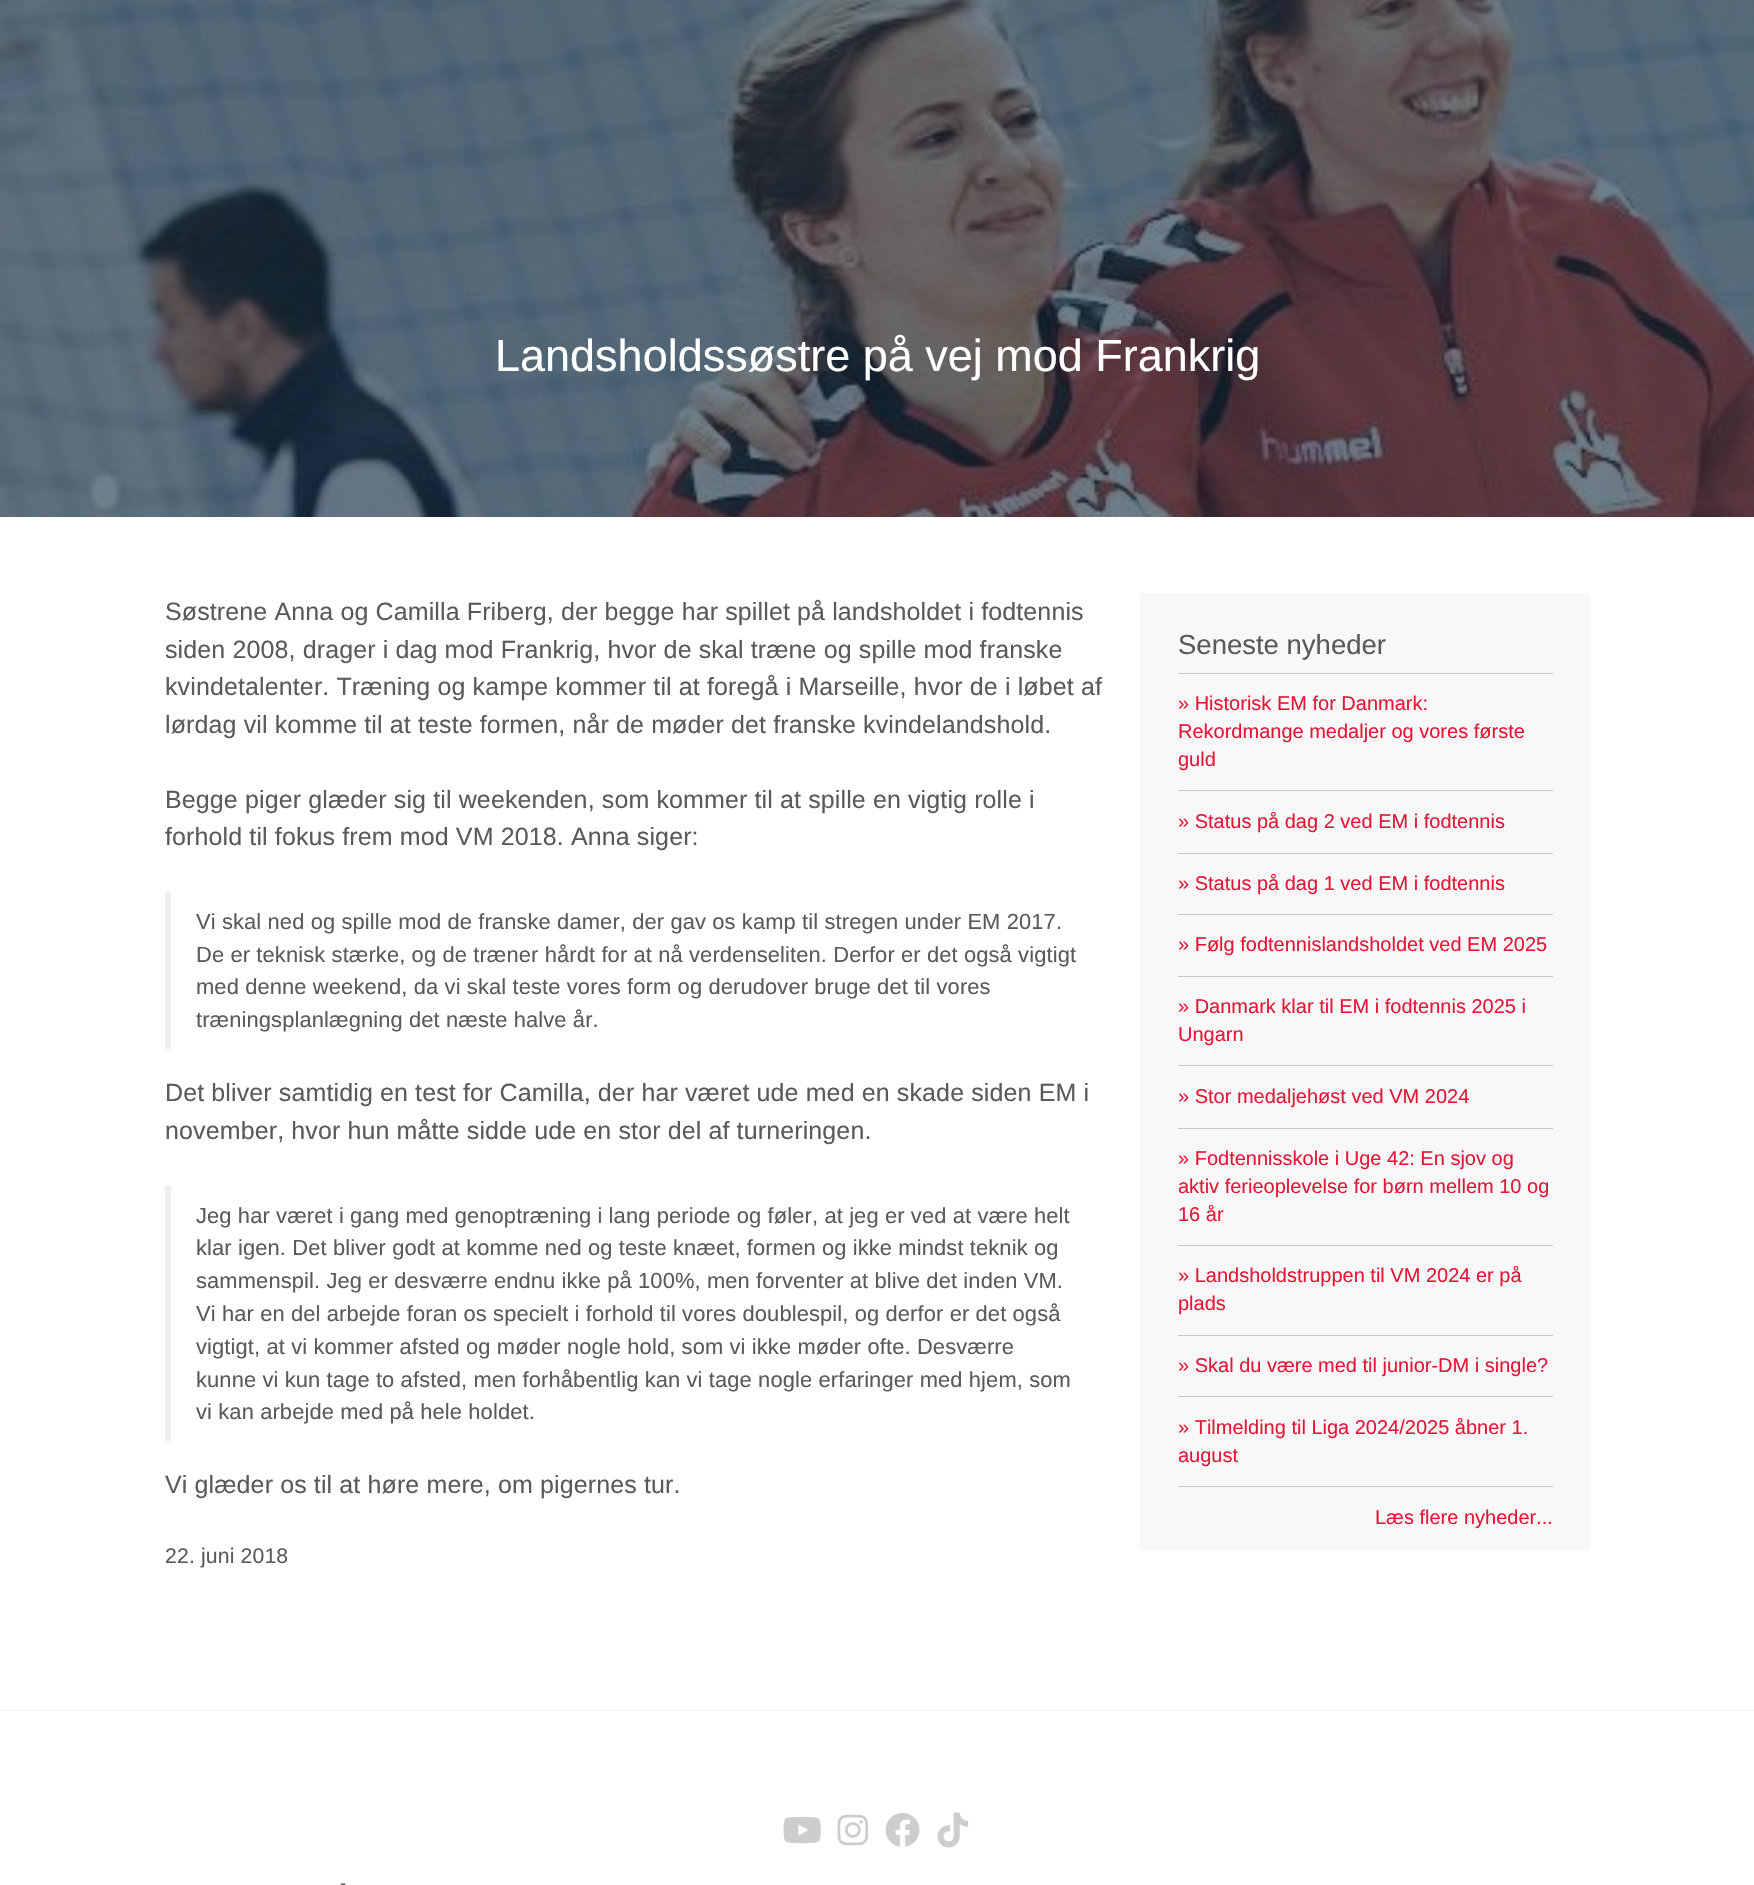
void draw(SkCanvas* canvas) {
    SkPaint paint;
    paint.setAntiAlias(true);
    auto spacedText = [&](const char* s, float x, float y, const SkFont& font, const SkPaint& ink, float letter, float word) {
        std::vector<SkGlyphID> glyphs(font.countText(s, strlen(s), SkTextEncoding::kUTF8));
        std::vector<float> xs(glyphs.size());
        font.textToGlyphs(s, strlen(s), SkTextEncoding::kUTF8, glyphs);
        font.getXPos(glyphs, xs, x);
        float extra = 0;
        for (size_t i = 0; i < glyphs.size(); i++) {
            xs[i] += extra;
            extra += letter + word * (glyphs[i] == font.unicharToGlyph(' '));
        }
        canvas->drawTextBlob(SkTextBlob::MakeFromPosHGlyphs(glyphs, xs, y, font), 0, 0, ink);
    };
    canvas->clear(0xFFFFFFFF);
    canvas->drawImageRect(SkImages::DeferredFromEncodedData(SkData::MakeFromFileName("img1.png")), SkRect::MakeXYWH(0, 0, 1754, 517), SkSamplingOptions());
    SkFont font1(fontMgr->matchFamilyStyle("Liberation Sans", SkFontStyle::Normal()), 45);
    font1.setSubpixel(true);
    paint.setColor(0xFFFFFFFF);
    canvas->drawString("Landsholdssøstre på vej mod Frankrig", 495, 371, font1, paint);
    SkFont font2(fontMgr->matchFamilyStyle("Liberation Sans", SkFontStyle::Normal()), 25);
    font2.setSubpixel(true);
    paint.setColor(0xFF5A5A5A);
    spacedText("Søstrene Anna og Camilla Friberg, der begge har spillet på landsholdet i fodtennis", 165, 620, font2, paint, 0.12f, 0);
    spacedText("siden 2008, drager i dag mod Frankrig, hvor de skal træne og spille mod franske", 165, 658, font2, paint, 0.12f, 0);
    spacedText("kvindetalenter. Træning og kampe kommer til at foregå i Marseille, hvor de i løbet af", 165, 695, font2, paint, 0.12f, 0);
    spacedText("lørdag vil komme til at teste formen, når de møder det franske kvindelandshold.", 165, 733, font2, paint, 0.12f, 0);
    spacedText("Begge piger glæder sig til weekenden, som kommer til at spille en vigtig rolle i", 165, 808, font2, paint, 0.12f, 0);
    spacedText("forhold til fokus frem mod VM 2018. Anna siger:", 165, 845, font2, paint, 0.12f, 0);
    paint.setColor(0xFFEEEEEE);
    canvas->drawRect(SkRect::MakeXYWH(165, 893, 6, 156), paint);
    SkFont font3(fontMgr->matchFamilyStyle("Liberation Sans", SkFontStyle::Normal()), 21.9f);
    font3.setSubpixel(true);
    paint.setColor(0xFF5A5A5A);
    spacedText("Vi skal ned og spille mod de franske damer, der gav os kamp til stregen under EM 2017.", 196, 929, font3, paint, 0.12f, 0);
    spacedText("De er teknisk stærke, og de træner hårdt for at nå verdenseliten. Derfor er det også vigtigt", 196, 962, font3, paint, 0.12f, 0);
    spacedText("med denne weekend, da vi skal teste vores form og derudover bruge det til vores", 196, 994, font3, paint, 0.12f, 0);
    spacedText("træningsplanlægning det næste halve år.", 196, 1027, font3, paint, 0.12f, 0);
    spacedText("Det bliver samtidig en test for Camilla, der har været ude med en skade siden EM i", 165, 1101, font2, paint, 0.12f, 0);
    spacedText("november, hvor hun måtte sidde ude en stor del af turneringen.", 165, 1139, font2, paint, 0.12f, 0);
    paint.setColor(0xFFEEEEEE);
    canvas->drawRect(SkRect::MakeXYWH(165, 1186, 6, 255), paint);
    paint.setColor(0xFF5A5A5A);
    spacedText("Jeg har været i gang med genoptræning i lang periode og føler, at jeg er ved at være helt", 196, 1223, font3, paint, 0.12f, 0);
    spacedText("klar igen. Det bliver godt at komme ned og teste knæet, formen og ikke mindst teknik og", 196, 1255, font3, paint, 0.12f, 0);
    spacedText("sammenspil. Jeg er desværre endnu ikke på 100%, men forventer at blive det inden VM.", 196, 1288, font3, paint, 0.12f, 0);
    spacedText("Vi har en del arbejde foran os specielt i forhold til vores doublespil, og derfor er det også", 196, 1321, font3, paint, 0.12f, 0);
    spacedText("vigtigt, at vi kommer afsted og møder nogle hold, som vi ikke møder ofte. Desværre", 196, 1354, font3, paint, 0.12f, 0);
    spacedText("kunne vi kun tage to afsted, men forhåbentlig kan vi tage nogle erfaringer med hjem, som", 196, 1387, font3, paint, 0.12f, 0);
    spacedText("vi kan arbejde med på hele holdet.", 196, 1419, font3, paint, 0.12f, 0);
    spacedText("Vi glæder os til at høre mere, om pigernes tur.", 165, 1493, font2, paint, 0.12f, 0);
    SkFont font4(fontMgr->matchFamilyStyle("Liberation Sans", SkFontStyle::Normal()), 21.25f);
    font4.setSubpixel(true);
    spacedText("22. juni 2018", 165, 1563, font4, paint, 0.12f, 0);
    paint.setColor(0xFFF8F8F8);
    canvas->drawRect(SkRect::MakeXYWH(1140, 593, 450, 957), paint);
    paint.setColor(0xFFC8C8C8);
    canvas->drawRect(SkRect::MakeXYWH(1178, 673, 375, 1), paint);
    SkFont font5(fontMgr->matchFamilyStyle("Liberation Sans", SkFontStyle::Normal()), 27.5f);
    font5.setSubpixel(true);
    paint.setColor(0xFF5A5A5A);
    canvas->drawString("Seneste nyheder", 1178, 654, font5, paint);
    paint.setColor(0xFFC8C8C8);
    canvas->drawRect(SkRect::MakeXYWH(1178, 790, 375, 1), paint);
    SkFont font6(fontMgr->matchFamilyStyle("Liberation Sans", SkFontStyle::Normal()), 20);
    font6.setSubpixel(true);
    paint.setColor(0xFFE31836);
    canvas->drawString("» Historisk EM for Danmark:", 1178, 710, font6, paint);
    canvas->drawString("Rekordmange medaljer og vores første", 1178, 738, font6, paint);
    canvas->drawString("guld", 1178, 766, font6, paint);
    paint.setColor(0xFFC8C8C8);
    canvas->drawRect(SkRect::MakeXYWH(1178, 853, 375, 1), paint);
    paint.setColor(0xFFE31836);
    canvas->drawString("» Status på dag 2 ved EM i fodtennis", 1178, 828, font6, paint);
    paint.setColor(0xFFC8C8C8);
    canvas->drawRect(SkRect::MakeXYWH(1178, 914, 375, 1), paint);
    paint.setColor(0xFFE31836);
    canvas->drawString("» Status på dag 1 ved EM i fodtennis", 1178, 890, font6, paint);
    paint.setColor(0xFFC8C8C8);
    canvas->drawRect(SkRect::MakeXYWH(1178, 976, 375, 1), paint);
    paint.setColor(0xFFE31836);
    canvas->drawString("» Følg fodtennislandsholdet ved EM 2025", 1178, 951, font6, paint);
    paint.setColor(0xFFC8C8C8);
    canvas->drawRect(SkRect::MakeXYWH(1178, 1065, 375, 1), paint);
    paint.setColor(0xFFE31836);
    canvas->drawString("» Danmark klar til EM i fodtennis 2025 i", 1178, 1013, font6, paint);
    canvas->drawString("Ungarn", 1178, 1041, font6, paint);
    paint.setColor(0xFFC8C8C8);
    canvas->drawRect(SkRect::MakeXYWH(1178, 1128, 375, 1), paint);
    paint.setColor(0xFFE31836);
    canvas->drawString("» Stor medaljehøst ved VM 2024", 1178, 1103, font6, paint);
    paint.setColor(0xFFC8C8C8);
    canvas->drawRect(SkRect::MakeXYWH(1178, 1245, 375, 1), paint);
    paint.setColor(0xFFE31836);
    canvas->drawString("» Fodtennisskole i Uge 42: En sjov og", 1178, 1165, font6, paint);
    canvas->drawString("aktiv ferieoplevelse for børn mellem 10 og", 1178, 1193, font6, paint);
    canvas->drawString("16 år", 1178, 1221, font6, paint);
    paint.setColor(0xFFC8C8C8);
    canvas->drawRect(SkRect::MakeXYWH(1178, 1335, 375, 1), paint);
    paint.setColor(0xFFE31836);
    canvas->drawString("» Landsholdstruppen til VM 2024 er på", 1178, 1282, font6, paint);
    canvas->drawString("plads", 1178, 1310, font6, paint);
    paint.setColor(0xFFC8C8C8);
    canvas->drawRect(SkRect::MakeXYWH(1178, 1396, 375, 1), paint);
    paint.setColor(0xFFE31836);
    canvas->drawString("» Skal du være med til junior-DM i single?", 1178, 1372, font6, paint);
    paint.setColor(0xFFC8C8C8);
    canvas->drawRect(SkRect::MakeXYWH(1178, 1486, 375, 1), paint);
    paint.setColor(0xFFE31836);
    canvas->drawString("» Tilmelding til Liga 2024/2025 åbner 1.", 1178, 1434, font6, paint);
    canvas->drawString("august", 1178, 1462, font6, paint);
    canvas->drawString("Læs flere nyheder...", 1375, 1524, font6, paint);
    paint.setColor(0xFFEEEEEE);
    canvas->drawRect(SkRect::MakeXYWH(0, 1710, 1754, 1), paint);
    canvas->drawImageRect(SkImages::DeferredFromEncodedData(SkData::MakeFromFileName("img2.png")), SkRect::MakeXYWH(783, 1816, 38, 28), SkSamplingOptions());
    canvas->drawImageRect(SkImages::DeferredFromEncodedData(SkData::MakeFromFileName("img3.png")), SkRect::MakeXYWH(837, 1814, 32, 32), SkSamplingOptions());
    canvas->drawImageRect(SkImages::DeferredFromEncodedData(SkData::MakeFromFileName("img4.png")), SkRect::MakeXYWH(885, 1813, 35, 34), SkSamplingOptions());
    canvas->drawImageRect(SkImages::DeferredFromEncodedData(SkData::MakeFromFileName("img5.png")), SkRect::MakeXYWH(937, 1812, 32, 36), SkSamplingOptions());
    SkFont font7(fontMgr->matchFamilyStyle("Liberation Sans", SkFontStyle::Normal()), 18);
    font7.setSubpixel(true);
    paint.setColor(0xFF5A5A5A);
    canvas->drawString("-", 340, 1889, font7, paint);
}
